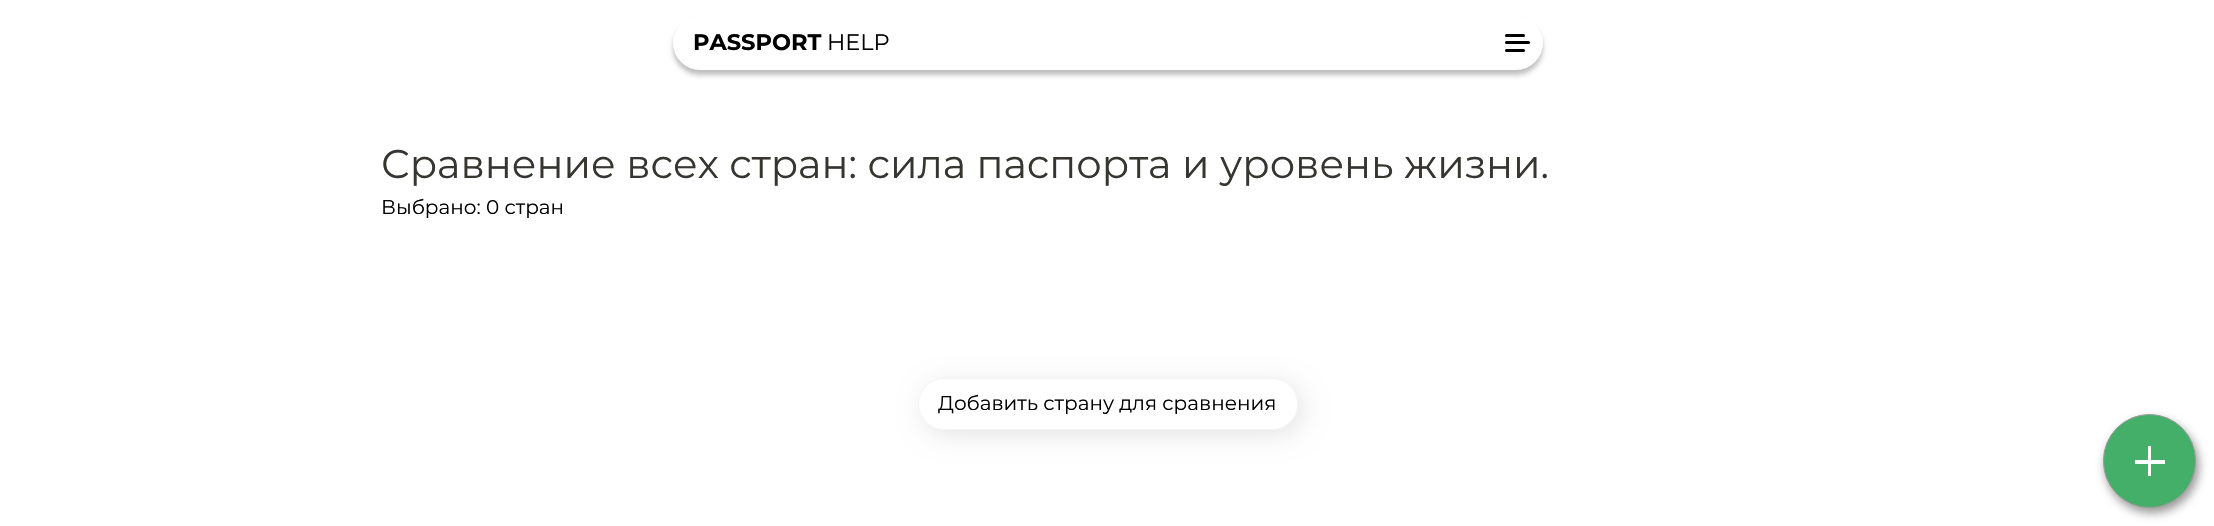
void draw(SkCanvas* canvas) {
    SkPaint paint;
    paint.setAntiAlias(true);
    canvas->clear(0xFFFFFFFF);
    paint.setColor(0x40000000);
    paint.setMaskFilter(SkMaskFilter::MakeBlur(kNormal_SkBlurStyle, 2.5f));
    canvas->drawRoundRect(SkRect::MakeXYWH(673, 21, 870, 54), 27, 27, paint);
    paint.setMaskFilter(nullptr);
    paint.setColor(0xFFFFFFFF);
    canvas->drawRoundRect(SkRect::MakeXYWH(673, 16, 870, 54), 27, 27, paint);
    SkFont font1(fontMgr->matchFamilyStyle("Montserrat", SkFontStyle::Bold()), 22.5f);
    font1.setSubpixel(true);
    paint.setColor(0xFF000000);
    canvas->drawString("PASSPORT", 693, 50, font1, paint);
    SkFont font2(fontMgr->matchFamilyStyle("Montserrat", SkFontStyle::Normal()), 22.5f);
    font2.setSubpixel(true);
    canvas->drawString("HELP", 827, 50, font2, paint);
    canvas->drawRoundRect(SkRect::MakeXYWH(1505, 34, 20, 3), 1.5f, 1.5f, paint);
    canvas->drawRoundRect(SkRect::MakeXYWH(1505, 41, 25, 3), 1.5f, 1.5f, paint);
    canvas->drawRoundRect(SkRect::MakeXYWH(1505, 49, 20, 3), 1.5f, 1.5f, paint);
    SkFont font3(fontMgr->matchFamilyStyle("Montserrat", SkFontStyle::Normal()), 40);
    font3.setSubpixel(true);
    paint.setColor(0xFF37352F);
    canvas->drawString("Сравнение всех стран: сила паспорта и уровень жизни.", 381, 178, font3, paint);
    SkFont font4(fontMgr->matchFamilyStyle("Montserrat", SkFontStyle::Normal()), 20);
    font4.setSubpixel(true);
    paint.setColor(0xFF000000);
    canvas->drawString("Выбрано: 0 стран", 381, 214, font4, paint);
    canvas->save();
    canvas->clipPath(SkPathBuilder(SkPathFillType::kEvenOdd).moveTo(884, 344).lineTo(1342, 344).lineTo(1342, 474).lineTo(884, 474).close().moveTo(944, 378).lineTo(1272, 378).cubicTo(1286.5f, 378, 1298, 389.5f, 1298, 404).cubicTo(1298, 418.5f, 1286.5f, 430, 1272, 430).lineTo(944, 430).cubicTo(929.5f, 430, 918, 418.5f, 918, 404).cubicTo(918, 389.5f, 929.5f, 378, 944, 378).close().detach(), true);
    paint.setColor(0x1A000000);
    paint.setMaskFilter(SkMaskFilter::MakeBlur(kNormal_SkBlurStyle, 12.5f));
    canvas->drawRoundRect(SkRect::MakeXYWH(923, 383, 380, 52), 26, 26, paint);
    paint.setMaskFilter(nullptr);
    canvas->restore();
    paint.setStyle(SkPaint::kStroke_Style);
    paint.setStrokeWidth(1);
    paint.setColor(0xFFF4F4F4);
    canvas->drawRoundRect(SkRect::MakeXYWH(918.5f, 378.5f, 379, 51), 25.5f, 25.5f, paint);
    paint.setStyle(SkPaint::kFill_Style);
    paint.setColor(0xFF000000);
    canvas->drawString("Добавить страну для сравнения", 938, 410, font4, paint);
    paint.setColor(0xFF999999);
    paint.setMaskFilter(SkMaskFilter::MakeBlur(kNormal_SkBlurStyle, 5));
    canvas->drawRoundRect(SkRect::MakeXYWH(2105, 419, 94, 94), 47, 47, paint);
    paint.setMaskFilter(nullptr);
    paint.setColor(0xFF44AF69);
    canvas->drawRoundRect(SkRect::MakeXYWH(2103.5f, 414.5f, 92, 93), 46, 46, paint);
    paint.setStyle(SkPaint::kStroke_Style);
    paint.setColor(0xFF999999);
    canvas->drawRoundRect(SkRect::MakeXYWH(2103.5f, 414.5f, 92, 93), 46, 46, paint);
    paint.setStyle(SkPaint::kFill_Style);
    paint.setColor(0xFFFFFFFF);
    canvas->drawRect(SkRect::MakeXYWH(2135, 460, 30, 4), paint);
    canvas->drawRect(SkRect::MakeXYWH(2148, 446, 3, 30), paint);
}
